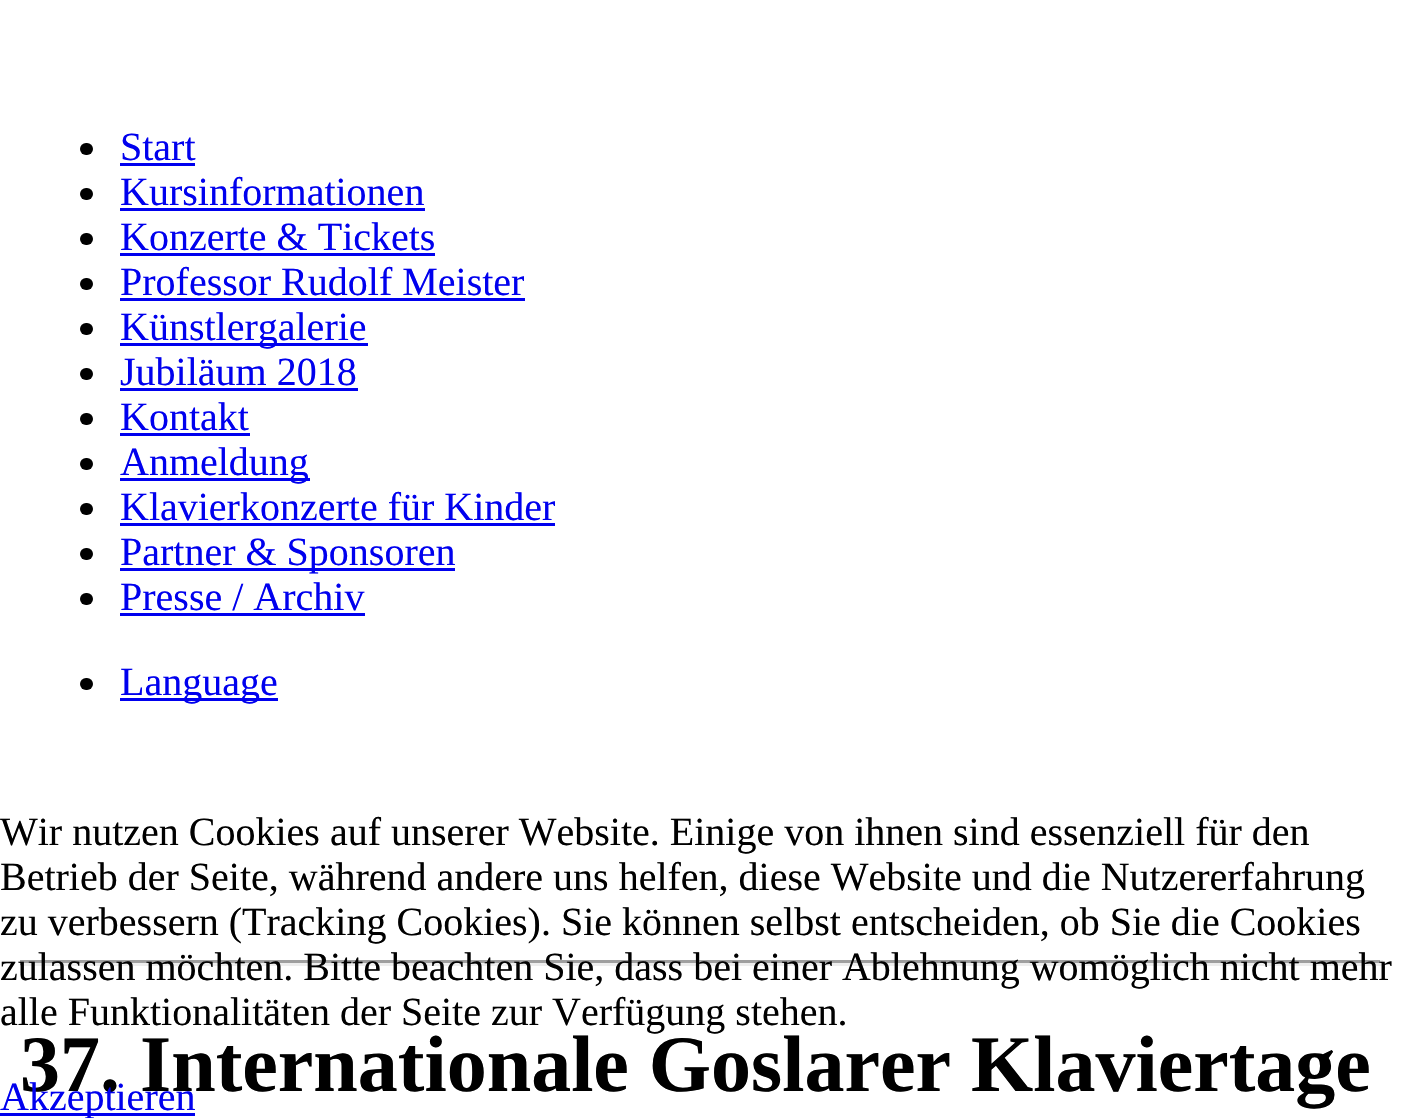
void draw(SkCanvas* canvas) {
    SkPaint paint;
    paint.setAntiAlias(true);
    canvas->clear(0xFFFFFFFF);
    paint.setColor(0xFF000000);
    canvas->drawRoundRect(SkRect::MakeXYWH(80, 143, 13, 12), 6, 6, paint);
    SkFont font1(fontMgr->matchFamilyStyle("Liberation Serif", SkFontStyle::Normal()), 40);
    font1.setSubpixel(true);
    paint.setColor(0xFF0000EE);
    canvas->drawString("Start", 120, 160, font1, paint);
    canvas->drawRect(SkRect::MakeXYWH(120, 163, 75, 3), paint);
    paint.setColor(0xFF000000);
    canvas->drawRoundRect(SkRect::MakeXYWH(80, 188, 13, 12), 6, 6, paint);
    paint.setColor(0xFF0000EE);
    canvas->drawString("Kursinformationen", 120, 205, font1, paint);
    canvas->drawRect(SkRect::MakeXYWH(120, 208, 305, 3), paint);
    paint.setColor(0xFF000000);
    canvas->drawRoundRect(SkRect::MakeXYWH(80, 233, 13, 12), 6, 6, paint);
    paint.setColor(0xFF0000EE);
    canvas->drawString("Konzerte & Tickets", 120, 250, font1, paint);
    canvas->drawRect(SkRect::MakeXYWH(120, 253, 315, 3), paint);
    paint.setColor(0xFF000000);
    canvas->drawRoundRect(SkRect::MakeXYWH(80, 278, 13, 12), 6, 6, paint);
    paint.setColor(0xFF0000EE);
    canvas->drawString("Professor Rudolf Meister", 120, 295, font1, paint);
    canvas->drawRect(SkRect::MakeXYWH(120, 298, 405, 3), paint);
    paint.setColor(0xFF000000);
    canvas->drawRoundRect(SkRect::MakeXYWH(80, 323, 13, 12), 6, 6, paint);
    paint.setColor(0xFF0000EE);
    canvas->drawRect(SkRect::MakeXYWH(120, 343, 248, 3), paint);
    canvas->drawString("Künstlergalerie", 120, 340, font1, paint);
    paint.setColor(0xFF000000);
    canvas->drawRoundRect(SkRect::MakeXYWH(80, 368, 13, 12), 6, 6, paint);
    paint.setColor(0xFF0000EE);
    canvas->drawString("Jubiläum 2018", 120, 385, font1, paint);
    canvas->drawRect(SkRect::MakeXYWH(120, 388, 238, 3), paint);
    paint.setColor(0xFF000000);
    canvas->drawRoundRect(SkRect::MakeXYWH(80, 413, 13, 12), 6, 6, paint);
    paint.setColor(0xFF0000EE);
    canvas->drawString("Kontakt", 120, 430, font1, paint);
    canvas->drawRect(SkRect::MakeXYWH(120, 433, 130, 3), paint);
    paint.setColor(0xFF000000);
    canvas->drawRoundRect(SkRect::MakeXYWH(80, 458, 13, 12), 6, 6, paint);
    paint.setColor(0xFF0000EE);
    canvas->drawRect(SkRect::MakeXYWH(120, 478, 190, 3), paint);
    canvas->drawString("Anmeldung", 120, 475, font1, paint);
    paint.setColor(0xFF000000);
    canvas->drawRoundRect(SkRect::MakeXYWH(80, 503, 13, 12), 6, 6, paint);
    paint.setColor(0xFF0000EE);
    canvas->drawString("Klavierkonzerte für Kinder", 120, 520, font1, paint);
    canvas->drawRect(SkRect::MakeXYWH(120, 523, 435, 3), paint);
    paint.setColor(0xFF000000);
    canvas->drawRoundRect(SkRect::MakeXYWH(80, 548, 13, 12), 6, 6, paint);
    paint.setColor(0xFF0000EE);
    canvas->drawRect(SkRect::MakeXYWH(120, 568, 335, 3), paint);
    canvas->drawString("Partner & Sponsoren", 120, 565, font1, paint);
    paint.setColor(0xFF000000);
    canvas->drawRoundRect(SkRect::MakeXYWH(80, 593, 13, 12), 6, 6, paint);
    paint.setColor(0xFF0000EE);
    canvas->drawString("Presse / Archiv", 120, 610, font1, paint);
    canvas->drawRect(SkRect::MakeXYWH(120, 613, 245, 3), paint);
    paint.setColor(0xFF000000);
    canvas->drawRoundRect(SkRect::MakeXYWH(80, 678, 13, 12), 6, 6, paint);
    paint.setColor(0xFF0000EE);
    canvas->drawRect(SkRect::MakeXYWH(120, 698, 158, 3), paint);
    canvas->drawString("Language", 120, 695, font1, paint);
    paint.setColor(0xFF9F9F9F);
    canvas->drawRect(SkRect::MakeXYWH(20, 960, 1363, 3), paint);
    paint.setColor(0xFFEEEEEE);
    canvas->drawRect(SkRect::MakeXYWH(1380, 960, 3, 5), paint);
    canvas->drawRect(SkRect::MakeXYWH(20, 963, 1363, 3), paint);
    paint.setColor(0xFF9F9F9F);
    canvas->drawRect(SkRect::MakeXYWH(20, 960, 3, 5), paint);
    SkFont font2(fontMgr->matchFamilyStyle("Liberation Serif", SkFontStyle::Bold()), 80);
    font2.setSubpixel(true);
    paint.setColor(0xFF000000);
    canvas->drawString("37. Internationale Goslarer Klaviertage", 20, 1091, font2, paint);
    canvas->drawString("Wir nutzen Cookies auf unserer Website. Einige von ihnen sind essenziell für den", 0, 845, font1, paint);
    canvas->drawString("Betrieb der Seite, während andere uns helfen, diese Website und die Nutzererfahrung", 0, 890, font1, paint);
    canvas->drawString("zu verbessern (Tracking Cookies). Sie können selbst entscheiden, ob Sie die Cookies", 0, 935, font1, paint);
    canvas->drawString("zulassen möchten. Bitte beachten Sie, dass bei einer Ablehnung womöglich nicht mehr", 0, 980, font1, paint);
    canvas->drawString("alle Funktionalitäten der Seite zur Verfügung stehen.", 0, 1025, font1, paint);
    paint.setColor(0xFF0000EE);
    canvas->drawRect(SkRect::MakeXYWH(0, 1113, 195, 3), paint);
    canvas->drawString("Akzeptieren", 0, 1110, font1, paint);
}
